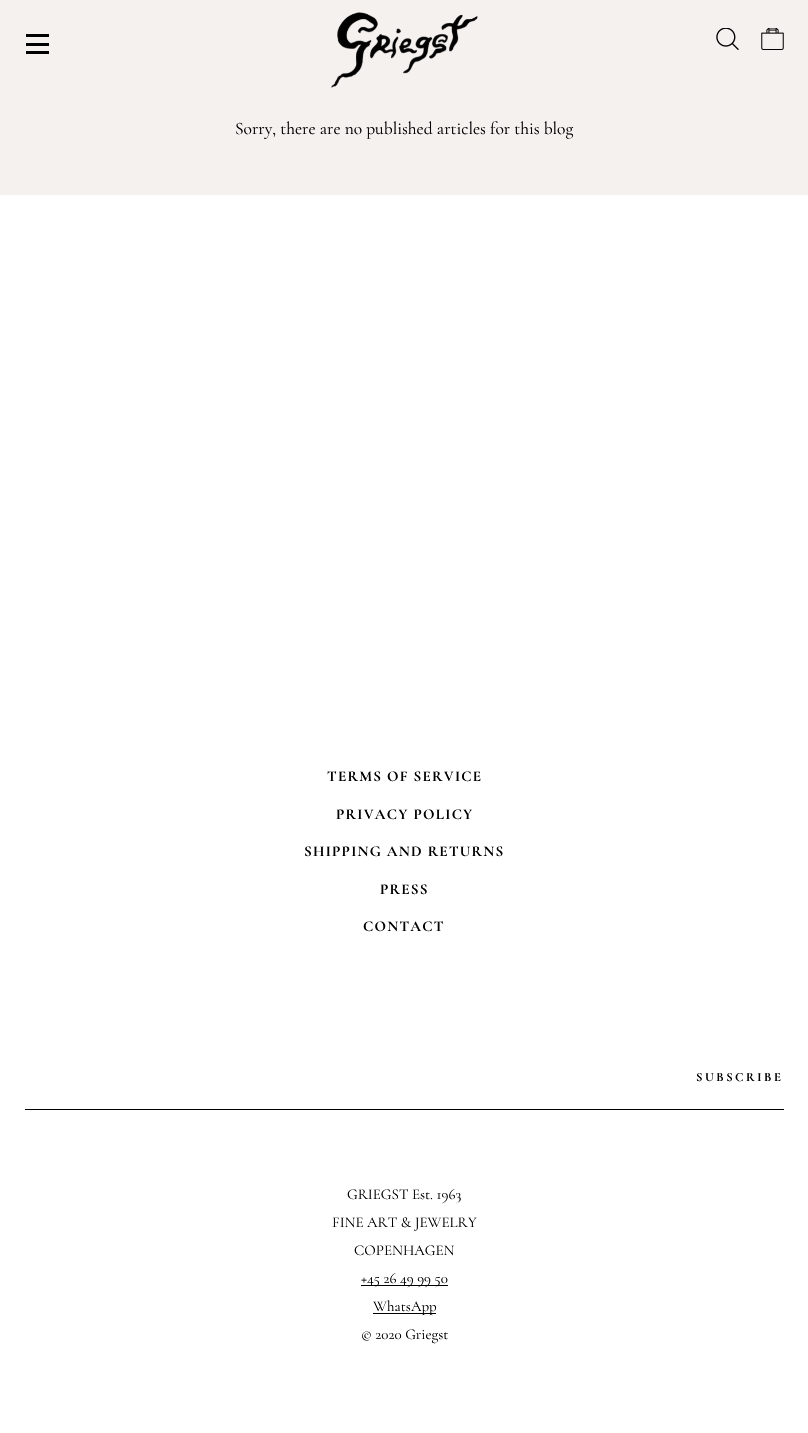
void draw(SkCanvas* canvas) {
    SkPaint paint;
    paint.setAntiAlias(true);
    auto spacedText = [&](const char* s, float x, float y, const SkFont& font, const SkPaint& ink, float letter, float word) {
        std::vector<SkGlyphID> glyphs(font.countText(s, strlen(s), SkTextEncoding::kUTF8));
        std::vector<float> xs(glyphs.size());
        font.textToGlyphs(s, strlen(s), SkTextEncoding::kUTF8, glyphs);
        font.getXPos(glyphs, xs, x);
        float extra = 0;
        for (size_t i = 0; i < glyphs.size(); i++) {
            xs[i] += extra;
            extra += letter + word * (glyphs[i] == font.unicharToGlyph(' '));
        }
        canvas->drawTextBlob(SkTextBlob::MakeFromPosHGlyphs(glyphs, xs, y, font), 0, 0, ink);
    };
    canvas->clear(0xFFFFFFFF);
    paint.setColor(0xFFF4F1EE);
    canvas->drawRect(SkRect::MakeXYWH(0, 0, 808, 195), paint);
    paint.setColor(0xFF000000);
    canvas->drawRect(SkRect::MakeXYWH(26, 34, 23, 3), paint);
    canvas->drawRect(SkRect::MakeXYWH(26, 43, 23, 3), paint);
    canvas->drawRect(SkRect::MakeXYWH(26, 51, 23, 3), paint);
    canvas->drawImageRect(SkImages::DeferredFromEncodedData(SkData::MakeFromFileName("img1.png")), SkRect::MakeXYWH(331, 12, 147, 76), SkSamplingOptions());
    canvas->drawImageRect(SkImages::DeferredFromEncodedData(SkData::MakeFromFileName("img2.png")), SkRect::MakeXYWH(716, 28, 23, 22), SkSamplingOptions());
    canvas->drawImageRect(SkImages::DeferredFromEncodedData(SkData::MakeFromFileName("img3.png")), SkRect::MakeXYWH(761, 28, 23, 22), SkSamplingOptions());
    SkFont font1(fontMgr->matchFamilyStyle("Cormorant Garamond", SkFontStyle::Normal()), 17.5f);
    font1.setSubpixel(true);
    canvas->drawString("Sorry, there are no published articles for this blog", 235, 134, font1, paint);
    SkFont font2(fontMgr->matchFamilyStyle("Cormorant Garamond", SkFontStyle::Bold()), 15);
    font2.setSubpixel(true);
    spacedText("TERMS OF SERVICE", 327, 781, font2, paint, 1.25f, 0);
    spacedText("PRIVACY POLICY", 336, 819, font2, paint, 1.25f, 0);
    spacedText("SHIPPING AND RETURNS", 304, 856, font2, paint, 1.25f, 0);
    spacedText("PRESS", 380, 894, font2, paint, 1.25f, 0);
    spacedText("CONTACT", 363, 931, font2, paint, 1.25f, 0);
    canvas->drawRect(SkRect::MakeXYWH(25, 1109, 759, 1), paint);
    SkFont font3(fontMgr->matchFamilyStyle("Cormorant Garamond", SkFontStyle::Bold()), 12.5f);
    font3.setSubpixel(true);
    spacedText("SUBSCRIBE", 696, 1081, font3, paint, 2.5f, 0);
    SkFont font4(fontMgr->matchFamilyStyle("Cormorant Garamond", SkFontStyle::Normal()), 15);
    font4.setSubpixel(true);
    canvas->drawString("GRIEGST Est. 1963", 347, 1199, font4, paint);
    canvas->drawString("FINE ART & JEWELRY", 332, 1227, font4, paint);
    canvas->drawString("COPENHAGEN", 354, 1255, font4, paint);
    canvas->drawRect(SkRect::MakeXYWH(361, 1285, 87, 1), paint);
    canvas->drawString("+45 26 49 99 50", 361, 1283, font4, paint);
    canvas->drawRect(SkRect::MakeXYWH(373, 1313, 63, 1), paint);
    canvas->drawString("WhatsApp", 373, 1311, font4, paint);
    canvas->drawString("© 2020 Griegst", 361, 1339, font4, paint);
}
